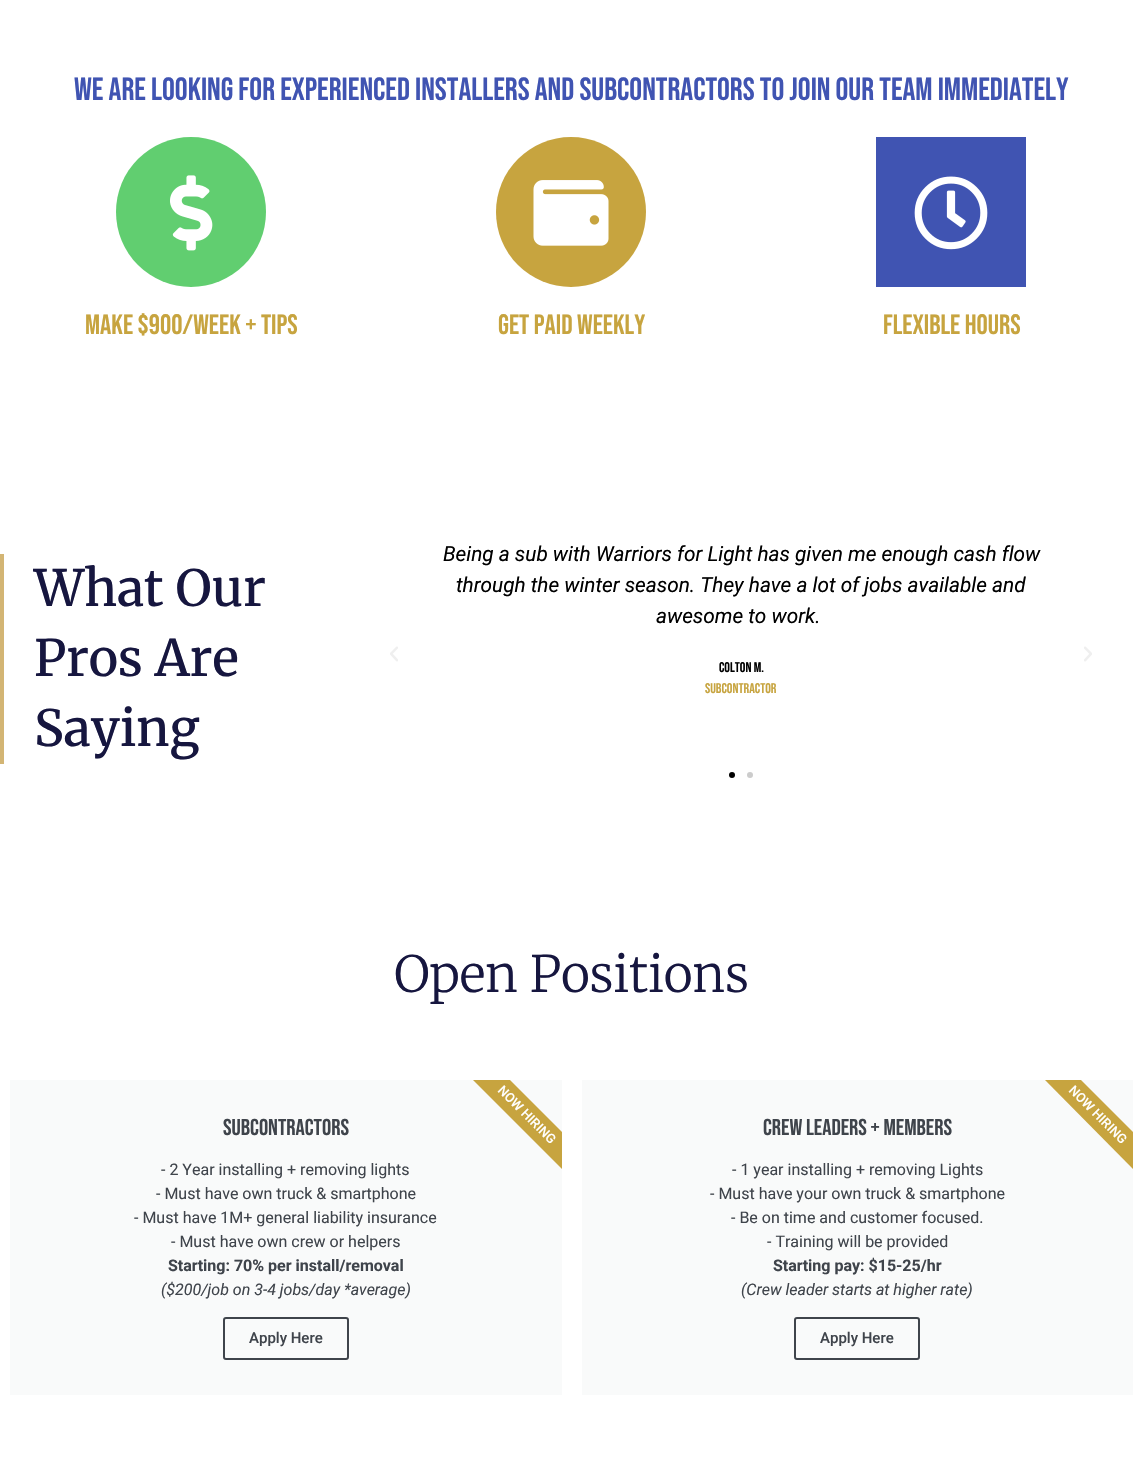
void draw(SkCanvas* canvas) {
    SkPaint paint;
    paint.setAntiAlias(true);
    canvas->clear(0xFFFFFFFF);
    SkFont font1(fontMgr->matchFamilyStyle("Bebas Neue", SkFontStyle::Normal()), 32);
    font1.setSubpixel(true);
    paint.setColor(0xFF4054B2);
    canvas->drawString("We Are Looking For Experienced Installers And Subcontractors To Join Our Team Immediately", 74, 100, font1, paint);
    paint.setColor(0xFF61CE70);
    canvas->drawCircle(191, 212, 75, paint);
    canvas->drawImageRect(SkImages::DeferredFromEncodedData(SkData::MakeFromFileName("img1.png")), SkRect::MakeXYWH(170, 175, 43, 76), SkSamplingOptions());
    SkFont font2(fontMgr->matchFamilyStyle("Bebas Neue", SkFontStyle::Normal()), 28);
    font2.setSubpixel(true);
    paint.setColor(0xFFC7A43F);
    canvas->drawString("Make $900/Week + Tips", 85, 334, font2, paint);
    canvas->drawCircle(571, 212, 75, paint);
    canvas->drawImageRect(SkImages::DeferredFromEncodedData(SkData::MakeFromFileName("img2.png")), SkRect::MakeXYWH(533, 180, 76, 66), SkSamplingOptions());
    canvas->drawString("Get Paid Weekly", 498, 334, font2, paint);
    paint.setColor(0xFF4054B2);
    canvas->drawRect(SkRect::MakeXYWH(876, 137, 150, 150), paint);
    canvas->drawImageRect(SkImages::DeferredFromEncodedData(SkData::MakeFromFileName("img3.png")), SkRect::MakeXYWH(914, 176, 74, 74), SkSamplingOptions());
    paint.setColor(0xFFC7A43F);
    canvas->drawString("Flexible Hours", 883, 334, font2, paint);
    paint.setColor(0xFFD3B574);
    canvas->drawRect(SkRect::MakeXYWH(0, 554, 4, 210), paint);
    SkFont font3(fontMgr->matchFamilyStyle("Merriweather", SkFontStyle(500, SkFontStyle::kNormal_Width, SkFontStyle::kUpright_Slant)), 50);
    font3.setSubpixel(true);
    paint.setColor(0xFF16163F);
    canvas->drawString("What Our", 34, 606, font3, paint);
    canvas->drawString("Pros Are", 34, 676, font3, paint);
    canvas->drawString("Saying", 34, 746, font3, paint);
    canvas->drawImageRect(SkImages::DeferredFromEncodedData(SkData::MakeFromFileName("img4.png")), SkRect::MakeXYWH(390, 646, 8, 16), SkSamplingOptions());
    SkFont font4(fontMgr->matchFamilyStyle("Roboto", SkFontStyle::Italic()), 20.8f);
    font4.setSubpixel(true);
    paint.setColor(0xFF000000);
    canvas->drawString("Being a sub with Warriors for Light has given me enough cash flow", 443, 561, font4, paint);
    canvas->drawString("through the winter season. They have a lot of jobs available and", 456, 592, font4, paint);
    canvas->drawString("awesome to work.", 656, 623, font4, paint);
    SkFont font5(fontMgr->matchFamilyStyle("Bebas Neue", SkFontStyle::Normal()), 14);
    font5.setSubpixel(true);
    canvas->drawString("Colton M.", 719, 672, font5, paint);
    paint.setColor(0xFFC7A43F);
    canvas->drawString("Subcontractor", 705, 693, font5, paint);
    canvas->drawImageRect(SkImages::DeferredFromEncodedData(SkData::MakeFromFileName("img5.png")), SkRect::MakeXYWH(1084, 646, 8, 16), SkSamplingOptions());
    paint.setColor(0xFF000000);
    canvas->drawCircle(732, 775, 3, paint);
    paint.setColor(0xFFCCCCCC);
    canvas->drawCircle(750, 775, 3, paint);
    SkFont font6(fontMgr->matchFamilyStyle("Merriweather", SkFontStyle(300, SkFontStyle::kNormal_Width, SkFontStyle::kUpright_Slant)), 50);
    font6.setSubpixel(true);
    paint.setColor(0xFF16163F);
    canvas->drawString("Open Positions", 394, 992, font6, paint);
    paint.setColor(0xFFF9FAFA);
    canvas->drawRect(SkRect::MakeXYWH(10, 1080, 552, 315), paint);
    SkFont font7(fontMgr->matchFamilyStyle("Bebas Neue", SkFontStyle::Normal()), 23);
    font7.setSubpixel(true);
    paint.setColor(0xFF3F444B);
    canvas->drawString("Subcontractors", 223, 1135, font7, paint);
    SkFont font8(fontMgr->matchFamilyStyle("Roboto", SkFontStyle::Normal()), 16);
    font8.setSubpixel(true);
    canvas->drawString("- 2 Year installing + removing lights", 161, 1175, font8, paint);
    canvas->drawString("- Must have own truck & smartphone", 156, 1199, font8, paint);
    canvas->drawString("- Must have 1M+ general liability insurance", 134, 1223, font8, paint);
    canvas->drawString("- Must have own crew or helpers", 171, 1247, font8, paint);
    SkFont font9(fontMgr->matchFamilyStyle("Roboto", SkFontStyle::Bold()), 16);
    font9.setSubpixel(true);
    canvas->drawString("Starting: 70% per install/removal", 168, 1271, font9, paint);
    SkFont font10(fontMgr->matchFamilyStyle("Roboto", SkFontStyle::Italic()), 16);
    font10.setSubpixel(true);
    canvas->drawString("($200/job on 3-4 jobs/day *average)", 161, 1295, font10, paint);
    paint.setStyle(SkPaint::kStroke_Style);
    paint.setStrokeWidth(2);
    canvas->drawRoundRect(SkRect::MakeXYWH(224, 1318, 124, 41), 2, 2, paint);
    SkFont font11(fontMgr->matchFamilyStyle("Roboto", SkFontStyle(500, SkFontStyle::kNormal_Width, SkFontStyle::kUpright_Slant)), 15);
    font11.setSubpixel(true);
    paint.setStyle(SkPaint::kFill_Style);
    canvas->drawString("Apply Here", 249, 1343, font11, paint);
    paint.setColor(0xFFC7A43F);
    canvas->drawPath(SkPathBuilder().moveTo(562, 1169).lineTo(473, 1080).lineTo(510, 1080).lineTo(562, 1132).close().detach(), paint);
    SkFont font12(fontMgr->matchFamilyStyle("Roboto", SkFontStyle(500, SkFontStyle::kNormal_Width, SkFontStyle::kUpright_Slant)), 13);
    font12.setSubpixel(true);
    paint.setColor(0xFFFFFFFF);
    canvas->save();
    canvas->rotate(45, 497, 1091);
    canvas->drawString("NOW HIRING", 497, 1091, font12, paint);
    canvas->restore();
    paint.setColor(0xFFF9FAFA);
    canvas->drawRect(SkRect::MakeXYWH(582, 1080, 551, 315), paint);
    paint.setColor(0xFF3F444B);
    canvas->drawString("Crew Leaders + Members", 763, 1135, font7, paint);
    canvas->drawString("- 1 year installing + removing Lights", 732, 1175, font8, paint);
    canvas->drawString("- Must have your own truck & smartphone", 710, 1199, font8, paint);
    canvas->drawString("- Be on time and customer focused.", 731, 1223, font8, paint);
    canvas->drawString("- Training will be provided", 767, 1247, font8, paint);
    canvas->drawString("Starting pay: $15-25/hr", 773, 1271, font9, paint);
    canvas->drawString("(Crew leader starts at higher rate)", 741, 1295, font10, paint);
    paint.setStyle(SkPaint::kStroke_Style);
    canvas->drawRoundRect(SkRect::MakeXYWH(795, 1318, 124, 41), 2, 2, paint);
    paint.setStyle(SkPaint::kFill_Style);
    canvas->drawString("Apply Here", 820, 1343, font11, paint);
    paint.setColor(0xFFC7A43F);
    canvas->drawPath(SkPathBuilder().moveTo(1133, 1169).lineTo(1045, 1080).lineTo(1081, 1080).lineTo(1133, 1132).close().detach(), paint);
    paint.setColor(0xFFFFFFFF);
    canvas->save();
    canvas->rotate(45, 1068, 1091);
    canvas->drawString("NOW HIRING", 1068, 1091, font12, paint);
    canvas->restore();
}
